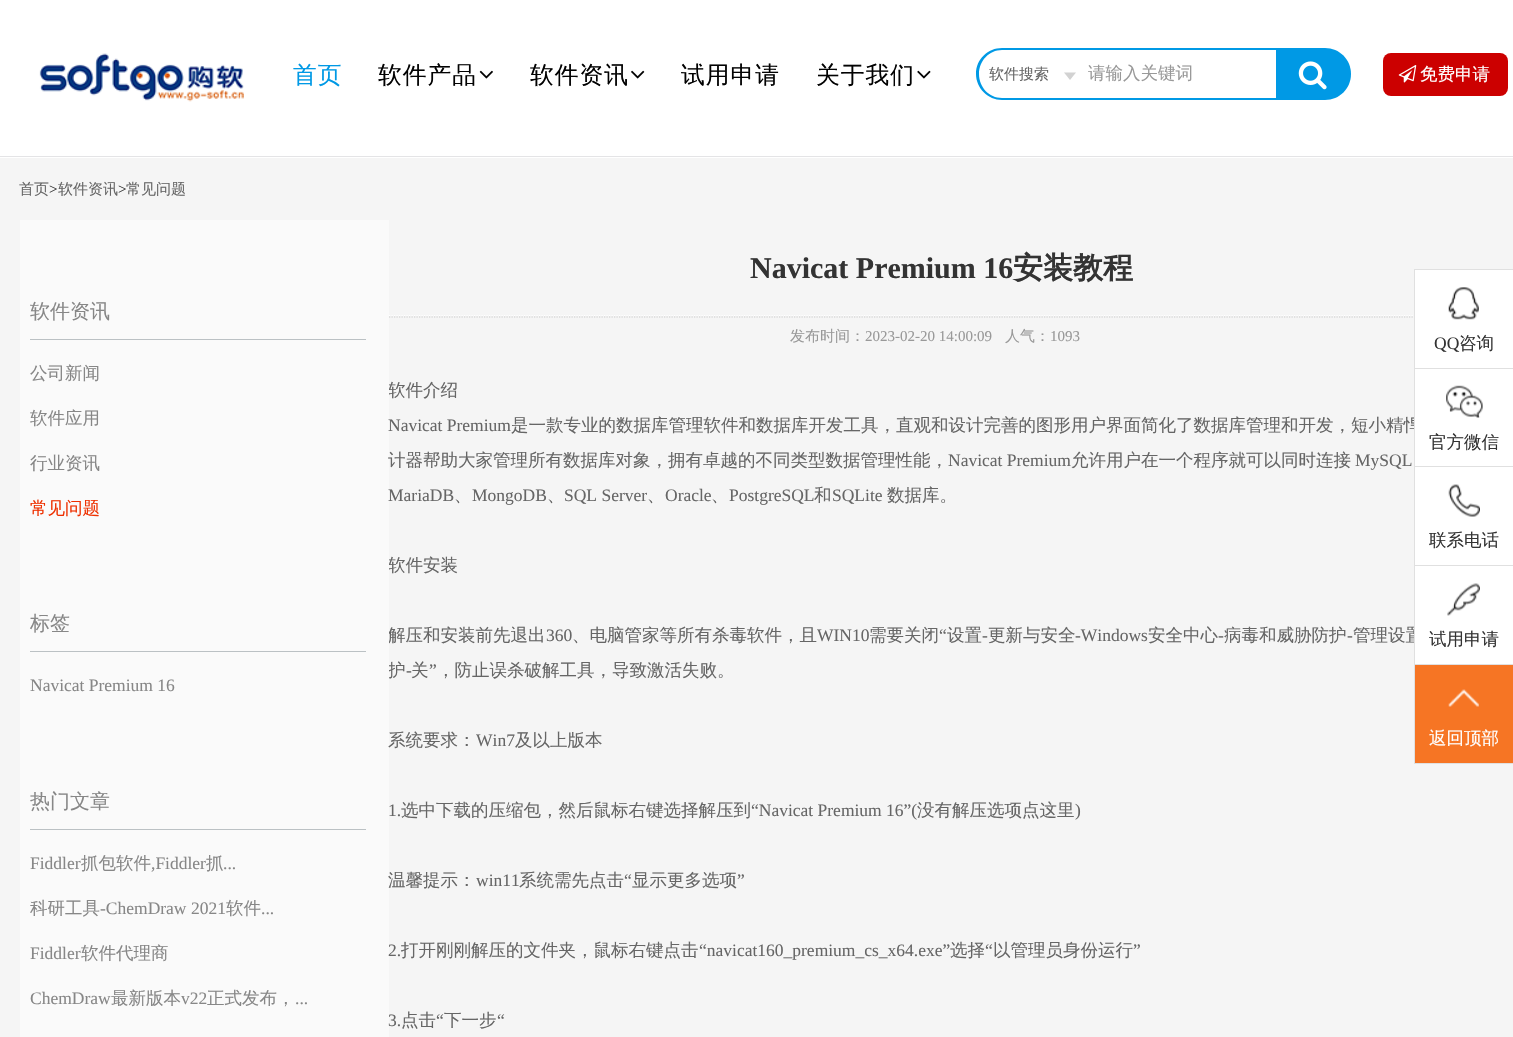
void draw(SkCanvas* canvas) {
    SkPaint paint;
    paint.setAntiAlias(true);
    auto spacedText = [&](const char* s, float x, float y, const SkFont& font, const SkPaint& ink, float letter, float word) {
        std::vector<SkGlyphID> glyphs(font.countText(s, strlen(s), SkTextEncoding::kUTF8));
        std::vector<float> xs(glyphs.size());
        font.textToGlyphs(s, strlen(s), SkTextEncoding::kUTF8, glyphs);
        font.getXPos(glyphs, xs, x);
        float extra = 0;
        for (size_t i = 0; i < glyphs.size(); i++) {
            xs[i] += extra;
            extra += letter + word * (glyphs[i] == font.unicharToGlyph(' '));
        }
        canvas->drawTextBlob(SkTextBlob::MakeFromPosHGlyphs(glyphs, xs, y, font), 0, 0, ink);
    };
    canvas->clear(0xFFF5F5F5);
    paint.setColor(0xFFFFFFFF);
    canvas->drawRect(SkRect::MakeXYWH(0, 0, 1513, 158), paint);
    paint.setColor(0xFFE4E4E6);
    canvas->drawRect(SkRect::MakeXYWH(0, 156, 1513, 1), paint);
    canvas->drawImageRect(SkImages::DeferredFromEncodedData(SkData::MakeFromFileName("img1.png")), SkRect::MakeXYWH(39, 53, 205, 49), SkSamplingOptions());
    SkFont font1(fontMgr->matchFamilyStyle("WenQuanYi Zen Hei", SkFontStyle(500, SkFontStyle::kNormal_Width, SkFontStyle::kUpright_Slant)), 23.75f);
    font1.setSubpixel(true);
    paint.setColor(0xFF0099E5);
    spacedText("首页", 293, 83, font1, paint, 1, 0);
    paint.setColor(0xFF020202);
    spacedText("软件产品", 378, 83, font1, paint, 1, 0);
    canvas->drawImageRect(SkImages::DeferredFromEncodedData(SkData::MakeFromFileName("img2.png")), SkRect::MakeXYWH(479, 70, 14, 9), SkSamplingOptions());
    spacedText("软件资讯", 530, 83, font1, paint, 1, 0);
    canvas->drawImageRect(SkImages::DeferredFromEncodedData(SkData::MakeFromFileName("img3.png")), SkRect::MakeXYWH(631, 70, 14, 9), SkSamplingOptions());
    spacedText("试用申请", 681, 83, font1, paint, 1, 0);
    spacedText("关于我们", 816, 83, font1, paint, 1, 0);
    canvas->drawImageRect(SkImages::DeferredFromEncodedData(SkData::MakeFromFileName("img4.png")), SkRect::MakeXYWH(917, 70, 14, 9), SkSamplingOptions());
    paint.setColor(0xFF0099E5);
    canvas->drawPath(SkPathBuilder(SkPathFillType::kEvenOdd).moveTo(1002, 48).lineTo(1276, 48).lineTo(1276, 100).lineTo(1002, 100).cubicTo(988, 100, 976, 88, 976, 74).cubicTo(976, 59, 988, 48, 1002, 48).close().moveTo(1002, 50).lineTo(1276, 50).lineTo(1276, 98).lineTo(1002, 98).cubicTo(989, 98, 979, 87, 979, 74).cubicTo(979, 61, 989, 50, 1002, 50).close().detach(), paint);
    SkFont font2(fontMgr->matchFamilyStyle("WenQuanYi Zen Hei", SkFontStyle(500, SkFontStyle::kNormal_Width, SkFontStyle::kUpright_Slant)), 15);
    font2.setSubpixel(true);
    paint.setColor(0xFF666666);
    canvas->drawString("软件搜索", 989, 79, font2, paint);
    paint.setColor(0xFFD2D2D2);
    canvas->drawPath(SkPathBuilder().moveTo(1064, 72.5f).lineTo(1076, 72.5f).lineTo(1070, 80).close().detach(), paint);
    SkFont font3(fontMgr->matchFamilyStyle("WenQuanYi Zen Hei", SkFontStyle(500, SkFontStyle::kNormal_Width, SkFontStyle::kUpright_Slant)), 17.5f);
    font3.setSubpixel(true);
    paint.setColor(0xFF999999);
    canvas->drawString("请输入关键词", 1088, 79, font3, paint);
    paint.setColor(0xFF0099E5);
    canvas->drawPath(SkPathBuilder().moveTo(1276, 48).lineTo(1325, 48).cubicTo(1339.5f, 48, 1351, 59.5f, 1351, 74).cubicTo(1351, 88.5f, 1339.5f, 100, 1325, 100).lineTo(1276, 100).close().detach(), paint);
    canvas->drawImageRect(SkImages::DeferredFromEncodedData(SkData::MakeFromFileName("img5.png")), SkRect::MakeXYWH(1298, 61, 29, 29), SkSamplingOptions());
    paint.setColor(0xFFCC0000);
    canvas->drawRoundRect(SkRect::MakeXYWH(1383, 53, 125, 43), 8, 8, paint);
    canvas->drawImageRect(SkImages::DeferredFromEncodedData(SkData::MakeFromFileName("img6.png")), SkRect::MakeXYWH(1398, 65, 19, 18), SkSamplingOptions());
    paint.setColor(0xFFFFFFFF);
    canvas->drawString("免费申请", 1420, 80, font3, paint);
    paint.setColor(0xFF666666);
    canvas->drawString("首页", 19, 194, font2, paint);
    SkFont font4(fontMgr->matchFamilyStyle("Liberation Serif", SkFontStyle::Normal()), 15);
    font4.setSubpixel(true);
    paint.setColor(0xFF333333);
    canvas->drawString(">", 49, 194, font4, paint);
    paint.setColor(0xFF666666);
    canvas->drawString("软件资讯", 58, 194, font2, paint);
    paint.setColor(0xFF333333);
    canvas->drawString(">", 118, 194, font4, paint);
    paint.setColor(0xFF666666);
    canvas->drawString("常见问题", 126, 194, font2, paint);
    paint.setColor(0xFFFAFAFA);
    canvas->drawRect(SkRect::MakeXYWH(20, 220, 369, 817), paint);
    SkFont font5(fontMgr->matchFamilyStyle("WenQuanYi Zen Hei", SkFontStyle(500, SkFontStyle::kNormal_Width, SkFontStyle::kUpright_Slant)), 20);
    font5.setSubpixel(true);
    paint.setColor(0xFF878787);
    canvas->drawString("软件资讯", 30, 318, font5, paint);
    paint.setColor(0xFFBBC1C4);
    canvas->drawRect(SkRect::MakeXYWH(30, 339, 336, 1), paint);
    paint.setColor(0xFF878787);
    canvas->drawString("公司新闻", 30, 379, font3, paint);
    canvas->drawString("软件应用", 30, 424, font3, paint);
    canvas->drawString("行业资讯", 30, 469, font3, paint);
    paint.setColor(0xFFEE3000);
    canvas->drawString("常见问题", 30, 514, font3, paint);
    paint.setColor(0xFF878787);
    canvas->drawString("标签", 30, 630, font5, paint);
    paint.setColor(0xFFBBC1C4);
    canvas->drawRect(SkRect::MakeXYWH(30, 651, 336, 1), paint);
    SkFont font6(fontMgr->matchFamilyStyle("Liberation Serif", SkFontStyle::Normal()), 17.5f);
    font6.setSubpixel(true);
    paint.setColor(0xFF878787);
    canvas->drawString("Navicat Premium 16", 30, 691, font6, paint);
    canvas->drawString("热门文章", 30, 808, font5, paint);
    paint.setColor(0xFFBBC1C4);
    canvas->drawRect(SkRect::MakeXYWH(30, 829, 336, 1), paint);
    paint.setColor(0xFF878787);
    canvas->drawString("Fiddler", 30, 869, font6, paint);
    canvas->drawString("抓包软件", 81, 869, font3, paint);
    canvas->drawString(",Fiddler", 151, 869, font6, paint);
    canvas->drawString("抓", 206, 869, font3, paint);
    canvas->drawString("...", 223, 869, font6, paint);
    canvas->drawString("科研工具", 30, 914, font3, paint);
    canvas->drawString("-ChemDraw 2021", 100, 914, font6, paint);
    canvas->drawString("软件", 226, 914, font3, paint);
    canvas->drawString("...", 261, 914, font6, paint);
    canvas->drawString("Fiddler", 30, 959, font6, paint);
    canvas->drawString("软件代理商", 81, 959, font3, paint);
    canvas->drawString("ChemDraw", 30, 1004, font6, paint);
    canvas->drawString("最新版本", 111, 1004, font3, paint);
    canvas->drawString("v22", 181, 1004, font6, paint);
    canvas->drawString("正式发布，", 207, 1004, font3, paint);
    canvas->drawString("...", 295, 1004, font6, paint);
    paint.setStyle(SkPaint::kStroke_Style);
    paint.setStrokeWidth(1.2f);
    paint.setColor(0xFFFFFFFF);
    paint.setPathEffect(SkDashPathEffect::Make({{1.25f, 1.25f}}, 0));
    canvas->drawPath(SkPathBuilder().moveTo(389, 315.5f).lineTo(1495, 315.5f).detach(), paint);
    paint.setPathEffect(nullptr);
    SkFont font7(fontMgr->matchFamilyStyle("Liberation Serif", SkFontStyle::Bold()), 30);
    font7.setSubpixel(true);
    paint.setStyle(SkPaint::kFill_Style);
    paint.setColor(0xFF333333);
    canvas->drawString("Navicat Premium 16", 750, 278, font7, paint);
    SkFont font8(fontMgr->matchFamilyStyle("WenQuanYi Zen Hei", SkFontStyle::Bold()), 30);
    font8.setSubpixel(true);
    canvas->drawString("安装教程", 1013, 278, font8, paint);
    paint.setStyle(SkPaint::kStroke_Style);
    paint.setColor(0xFFCCCCCC);
    paint.setPathEffect(SkDashPathEffect::Make({{1.25f, 1.25f}}, 0));
    canvas->drawPath(SkPathBuilder().moveTo(389, 317).lineTo(1495, 317).detach(), paint);
    paint.setPathEffect(nullptr);
    paint.setStyle(SkPaint::kFill_Style);
    paint.setColor(0xFF999999);
    canvas->drawString("发布时间：", 790, 341, font2, paint);
    canvas->drawString("2023-02-20 14:00:09", 865, 341, font4, paint);
    canvas->drawString("人气：", 1005, 341, font2, paint);
    canvas->drawString("1093", 1050, 341, font4, paint);
    canvas->save();
    canvas->clipRect(SkRect::MakeXYWH(389, 368, 1106, 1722));
    paint.setColor(0xFF666666);
    canvas->drawString("软件介绍", 388, 396, font3, paint);
    canvas->restore();
    canvas->drawString("Navicat Premium", 388, 431, font6, paint);
    canvas->drawString("是一款专业的数据库管理软件和数据库开发工具，直观和设计完善的图形用户界面简化了数据库管理和开发，短小精悍", 511, 431, font3, paint);
    canvas->drawString("计器帮助大家管理所有数据库对象，拥有卓越的不同类型数据管理性能，", 388, 466, font3, paint);
    canvas->drawString("Navicat Premium", 948, 466, font6, paint);
    canvas->drawString("允许用户在一个程序就可以同时连接", 1071, 466, font3, paint);
    canvas->drawString("MySQL", 1355, 466, font6, paint);
    canvas->drawString("MariaDB", 388, 501, font6, paint);
    canvas->drawString("、", 454, 501, font3, paint);
    canvas->drawString("MongoDB", 472, 501, font6, paint);
    canvas->drawString("、", 547, 501, font3, paint);
    canvas->drawString("SQL Server", 564, 501, font6, paint);
    canvas->drawString("、", 647, 501, font3, paint);
    canvas->drawString("Oracle", 665, 501, font6, paint);
    canvas->drawString("、", 711, 501, font3, paint);
    canvas->drawString("PostgreSQL", 729, 501, font6, paint);
    canvas->drawString("和", 814, 501, font3, paint);
    canvas->drawString("SQLite", 832, 501, font6, paint);
    canvas->drawString("数据库。", 887, 501, font3, paint);
    canvas->save();
    canvas->clipRect(SkRect::MakeXYWH(389, 368, 1106, 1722));
    canvas->drawString("软件安装", 388, 571, font3, paint);
    canvas->drawString("解压和安装前先退出", 388, 641, font3, paint);
    canvas->restore();
    canvas->drawString("360", 546, 641, font6, paint);
    canvas->drawString("、电脑管家等所有杀毒软件，且", 572, 641, font3, paint);
    canvas->drawString("WIN10", 817, 641, font6, paint);
    canvas->drawString("需要关闭", 869, 641, font3, paint);
    canvas->drawString("“", 939, 641, font6, paint);
    canvas->drawString("设置", 947, 641, font3, paint);
    canvas->drawString("更新与安全", 988, 641, font3, paint);
    canvas->drawString("-Windows", 1075, 641, font6, paint);
    canvas->drawString("安全中心", 1148, 641, font3, paint);
    canvas->drawString("病毒和威胁防护", 1224, 641, font3, paint);
    canvas->drawString("管理设置", 1353, 641, font3, paint);
    canvas->drawString("-", 982, 641, font6, paint);
    canvas->drawString("-", 1218, 641, font6, paint);
    canvas->drawString("-", 1347, 641, font6, paint);
    canvas->save();
    canvas->clipRect(SkRect::MakeXYWH(389, 368, 1106, 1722));
    canvas->drawString("护", 388, 676, font3, paint);
    canvas->restore();
    canvas->drawString("关", 411, 676, font3, paint);
    canvas->drawString("”", 429, 676, font6, paint);
    canvas->drawString("，防止误杀破解工具，导致激活失败。", 437, 676, font3, paint);
    canvas->drawString("-", 406, 676, font6, paint);
    canvas->drawString("系统要求：", 388, 746, font3, paint);
    canvas->drawString("Win7", 476, 746, font6, paint);
    canvas->drawString("及以上版本", 515, 746, font3, paint);
    canvas->drawString("1.", 388, 816, font6, paint);
    canvas->drawString("选中下载的压缩包，然后鼠标右键选择解压到", 401, 816, font3, paint);
    canvas->drawString("“Navicat Premium 16”(", 751, 816, font6, paint);
    canvas->drawString("没有解压选项点这里", 917, 816, font3, paint);
    canvas->drawString(")", 1075, 816, font6, paint);
    canvas->drawString("温馨提示：", 388, 886, font3, paint);
    canvas->drawString("win11", 476, 886, font6, paint);
    canvas->drawString("系统需先点击", 519, 886, font3, paint);
    canvas->drawString("“", 624, 886, font6, paint);
    canvas->drawString("显示更多选项", 632, 886, font3, paint);
    canvas->drawString("”", 737, 886, font6, paint);
    canvas->drawString("2.", 388, 956, font6, paint);
    canvas->drawString("打开刚刚解压的文件夹，鼠标右键点击", 401, 956, font3, paint);
    canvas->drawString("“navicat160_premium_cs_x64.exe”", 699, 956, font6, paint);
    canvas->drawString("选择", 950, 956, font3, paint);
    canvas->drawString("“", 985, 956, font6, paint);
    canvas->drawString("以管理员身份运行", 993, 956, font3, paint);
    canvas->drawString("”", 1133, 956, font6, paint);
    canvas->drawString("3.", 388, 1026, font6, paint);
    canvas->drawString("点击", 401, 1026, font3, paint);
    canvas->drawString("“", 436, 1026, font6, paint);
    canvas->drawString("下一步", 444, 1026, font3, paint);
    canvas->drawString("“", 497, 1026, font6, paint);
    paint.setColor(0xFFFFFFFF);
    canvas->drawRect(SkRect::MakeXYWH(1415, 270, 98, 394), paint);
    paint.setColor(0xFFE0E0E0);
    canvas->drawRect(SkRect::MakeXYWH(1414, 269, 99, 1), paint);
    canvas->drawRect(SkRect::MakeXYWH(1414, 269, 1, 495), paint);
    canvas->drawRect(SkRect::MakeXYWH(1415, 368, 98, 1), paint);
    canvas->drawImageRect(SkImages::DeferredFromEncodedData(SkData::MakeFromFileName("img7.png")), SkRect::MakeXYWH(1448, 287, 31, 33), SkSamplingOptions());
    paint.setColor(0xFF333333);
    canvas->drawString("QQ", 1434, 349, font6, paint);
    canvas->drawString("咨询", 1459, 349, font3, paint);
    paint.setColor(0xFFE0E0E0);
    canvas->drawRect(SkRect::MakeXYWH(1415, 466, 98, 1), paint);
    canvas->drawImageRect(SkImages::DeferredFromEncodedData(SkData::MakeFromFileName("img8.png")), SkRect::MakeXYWH(1446, 385, 37, 33), SkSamplingOptions());
    paint.setColor(0xFF333333);
    canvas->drawString("官方微信", 1429, 448, font3, paint);
    paint.setColor(0xFFE0E0E0);
    canvas->drawRect(SkRect::MakeXYWH(1415, 565, 98, 1), paint);
    canvas->drawImageRect(SkImages::DeferredFromEncodedData(SkData::MakeFromFileName("img9.png")), SkRect::MakeXYWH(1448, 484, 32, 33), SkSamplingOptions());
    paint.setColor(0xFF333333);
    canvas->drawString("联系电话", 1429, 546, font3, paint);
    paint.setColor(0xFFE0E0E0);
    canvas->drawRect(SkRect::MakeXYWH(1415, 664, 98, 1), paint);
    canvas->drawImageRect(SkImages::DeferredFromEncodedData(SkData::MakeFromFileName("img10.png")), SkRect::MakeXYWH(1447, 583, 33, 33), SkSamplingOptions());
    paint.setColor(0xFF333333);
    canvas->drawString("试用申请", 1429, 645, font3, paint);
    paint.setColor(0xFFF67524);
    canvas->drawRect(SkRect::MakeXYWH(1415, 665, 98, 98), paint);
    paint.setColor(0xFFE0E0E0);
    canvas->drawRect(SkRect::MakeXYWH(1415, 763, 98, 1), paint);
    canvas->drawImageRect(SkImages::DeferredFromEncodedData(SkData::MakeFromFileName("img11.png")), SkRect::MakeXYWH(1448, 689, 31, 18), SkSamplingOptions());
    paint.setColor(0xFFFFFFFF);
    canvas->drawString("返回顶部", 1429, 744, font3, paint);
}
